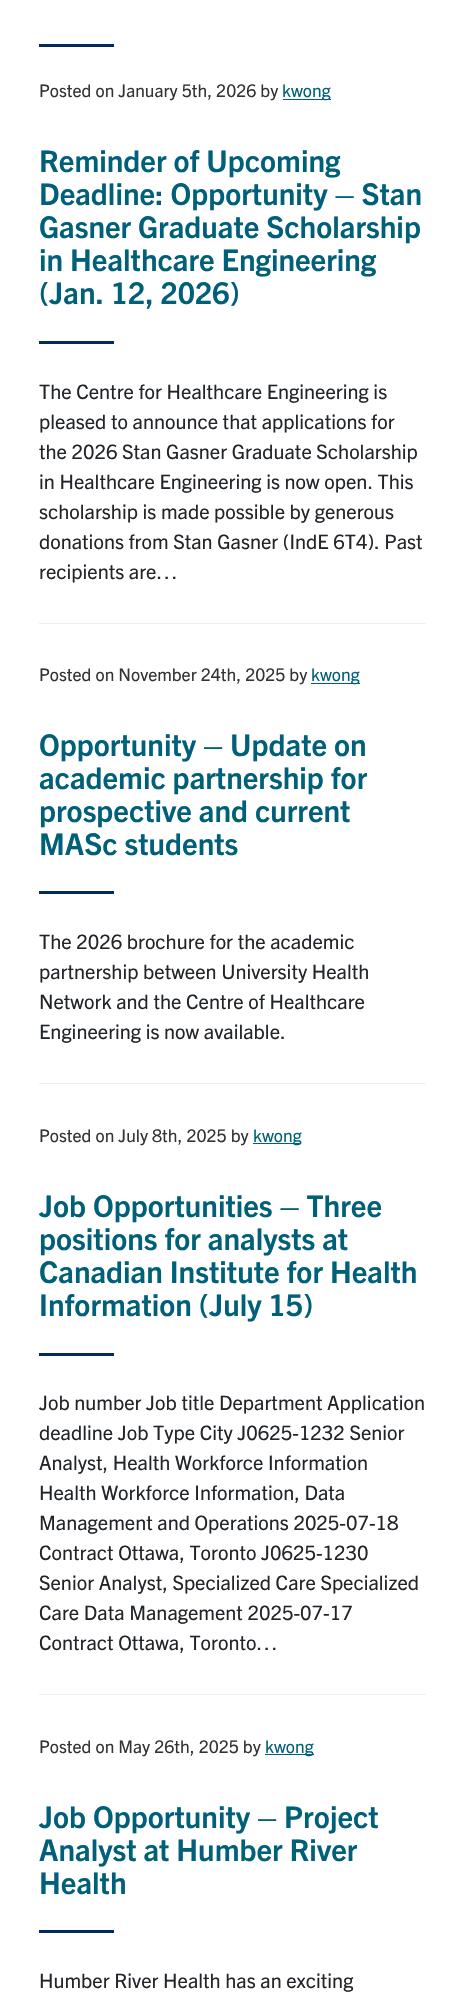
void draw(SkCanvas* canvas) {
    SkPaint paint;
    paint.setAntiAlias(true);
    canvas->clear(0xFFFFFFFF);
    paint.setColor(0xFF002A5C);
    canvas->drawRect(SkRect::MakeXYWH(39, 44, 75, 3), paint);
    paint.setColor(0xFFEEEEEE);
    canvas->drawRect(SkRect::MakeXYWH(39, 623, 387, 1), paint);
    SkFont font1(fontMgr->matchFamilyStyle("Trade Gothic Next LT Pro", SkFontStyle::Normal()), 17.5f);
    font1.setSubpixel(true);
    paint.setColor(0xFF333333);
    canvas->drawString("Posted on January 5th, 2026 by", 39, 97, font1, paint);
    paint.setColor(0xFF00607A);
    canvas->drawRect(SkRect::MakeXYWH(283, 99, 48, 1), paint);
    canvas->drawString("kwong", 282, 97, font1, paint);
    SkFont font2(fontMgr->matchFamilyStyle("Trade Gothic Next LT Pro", SkFontStyle::Bold()), 30);
    font2.setSubpixel(true);
    canvas->drawString("Reminder of Upcoming", 39, 172, font2, paint);
    canvas->drawString("Deadline: Opportunity – Stan", 39, 205, font2, paint);
    canvas->drawString("Gasner Graduate Scholarship", 39, 238, font2, paint);
    canvas->drawString("in Healthcare Engineering", 39, 271, font2, paint);
    canvas->drawString("(Jan. 12, 2026)", 39, 304, font2, paint);
    paint.setColor(0xFF002A5C);
    canvas->drawRect(SkRect::MakeXYWH(39, 341, 75, 3), paint);
    SkFont font3(fontMgr->matchFamilyStyle("Trade Gothic Next LT Pro", SkFontStyle::Normal()), 20);
    font3.setSubpixel(true);
    paint.setColor(0xFF212529);
    canvas->drawString("The Centre for Healthcare Engineering is", 39, 399, font3, paint);
    canvas->drawString("pleased to announce that applications for", 39, 429, font3, paint);
    canvas->drawString("the 2026 Stan Gasner Graduate Scholarship", 39, 459, font3, paint);
    canvas->drawString("in Healthcare Engineering is now open. This", 39, 489, font3, paint);
    canvas->drawString("scholarship is made possible by generous", 39, 519, font3, paint);
    canvas->drawString("donations from Stan Gasner (IndE 6T4). Past", 39, 549, font3, paint);
    canvas->drawString("recipients are…", 39, 579, font3, paint);
    paint.setColor(0xFFEEEEEE);
    canvas->drawRect(SkRect::MakeXYWH(39, 1083, 387, 1), paint);
    paint.setColor(0xFF333333);
    canvas->drawString("Posted on November 24th, 2025 by", 39, 681, font1, paint);
    paint.setColor(0xFF00607A);
    canvas->drawRect(SkRect::MakeXYWH(311, 683, 49, 1), paint);
    canvas->drawString("kwong", 311, 681, font1, paint);
    canvas->drawString("Opportunity – Update on", 39, 756, font2, paint);
    canvas->drawString("academic partnership for", 39, 789, font2, paint);
    canvas->drawString("prospective and current", 39, 822, font2, paint);
    canvas->drawString("MASc students", 39, 855, font2, paint);
    paint.setColor(0xFF002A5C);
    canvas->drawRect(SkRect::MakeXYWH(39, 891, 75, 3), paint);
    paint.setColor(0xFF212529);
    canvas->drawString("The 2026 brochure for the academic", 39, 949, font3, paint);
    canvas->drawString("partnership between University Health", 39, 979, font3, paint);
    canvas->drawString("Network and the Centre of Healthcare", 39, 1009, font3, paint);
    canvas->drawString("Engineering is now available.", 39, 1039, font3, paint);
    paint.setColor(0xFFEEEEEE);
    canvas->drawRect(SkRect::MakeXYWH(39, 1694, 387, 1), paint);
    paint.setColor(0xFF333333);
    canvas->drawString("Posted on July 8th, 2025 by", 39, 1142, font1, paint);
    paint.setColor(0xFF00607A);
    canvas->drawRect(SkRect::MakeXYWH(253, 1143, 48, 1), paint);
    canvas->drawString("kwong", 253, 1142, font1, paint);
    canvas->drawString("Job Opportunities – Three", 39, 1217, font2, paint);
    canvas->drawString("positions for analysts at", 39, 1250, font2, paint);
    canvas->drawString("Canadian Institute for Health", 39, 1283, font2, paint);
    canvas->drawString("Information (July 15)", 39, 1316, font2, paint);
    paint.setColor(0xFF002A5C);
    canvas->drawRect(SkRect::MakeXYWH(39, 1353, 75, 3), paint);
    paint.setColor(0xFF212529);
    canvas->drawString("Job number Job title Department Application", 39, 1410, font3, paint);
    canvas->drawString("deadline Job Type City J0625-1232 Senior", 39, 1440, font3, paint);
    canvas->drawString("Analyst, Health Workforce Information", 39, 1470, font3, paint);
    canvas->drawString("Health Workforce Information, Data", 39, 1500, font3, paint);
    canvas->drawString("Management and Operations 2025-07-18", 39, 1530, font3, paint);
    canvas->drawString("Contract Ottawa, Toronto J0625-1230", 39, 1560, font3, paint);
    canvas->drawString("Senior Analyst, Specialized Care Specialized", 39, 1590, font3, paint);
    canvas->drawString("Care Data Management 2025-07-17", 39, 1620, font3, paint);
    canvas->drawString("Contract Ottawa, Toronto…", 39, 1650, font3, paint);
    paint.setColor(0xFF333333);
    canvas->drawString("Posted on May 26th, 2025 by", 39, 1753, font1, paint);
    paint.setColor(0xFF00607A);
    canvas->drawRect(SkRect::MakeXYWH(265, 1754, 49, 1), paint);
    canvas->drawString("kwong", 265, 1753, font1, paint);
    canvas->drawString("Job Opportunity – Project", 39, 1828, font2, paint);
    canvas->drawString("Analyst at Humber River", 39, 1861, font2, paint);
    canvas->drawString("Health", 39, 1894, font2, paint);
    paint.setColor(0xFF002A5C);
    canvas->drawRect(SkRect::MakeXYWH(39, 1930, 75, 3), paint);
    paint.setColor(0xFF212529);
    canvas->drawString("Humber River Health has an exciting", 39, 1988, font3, paint);
}
